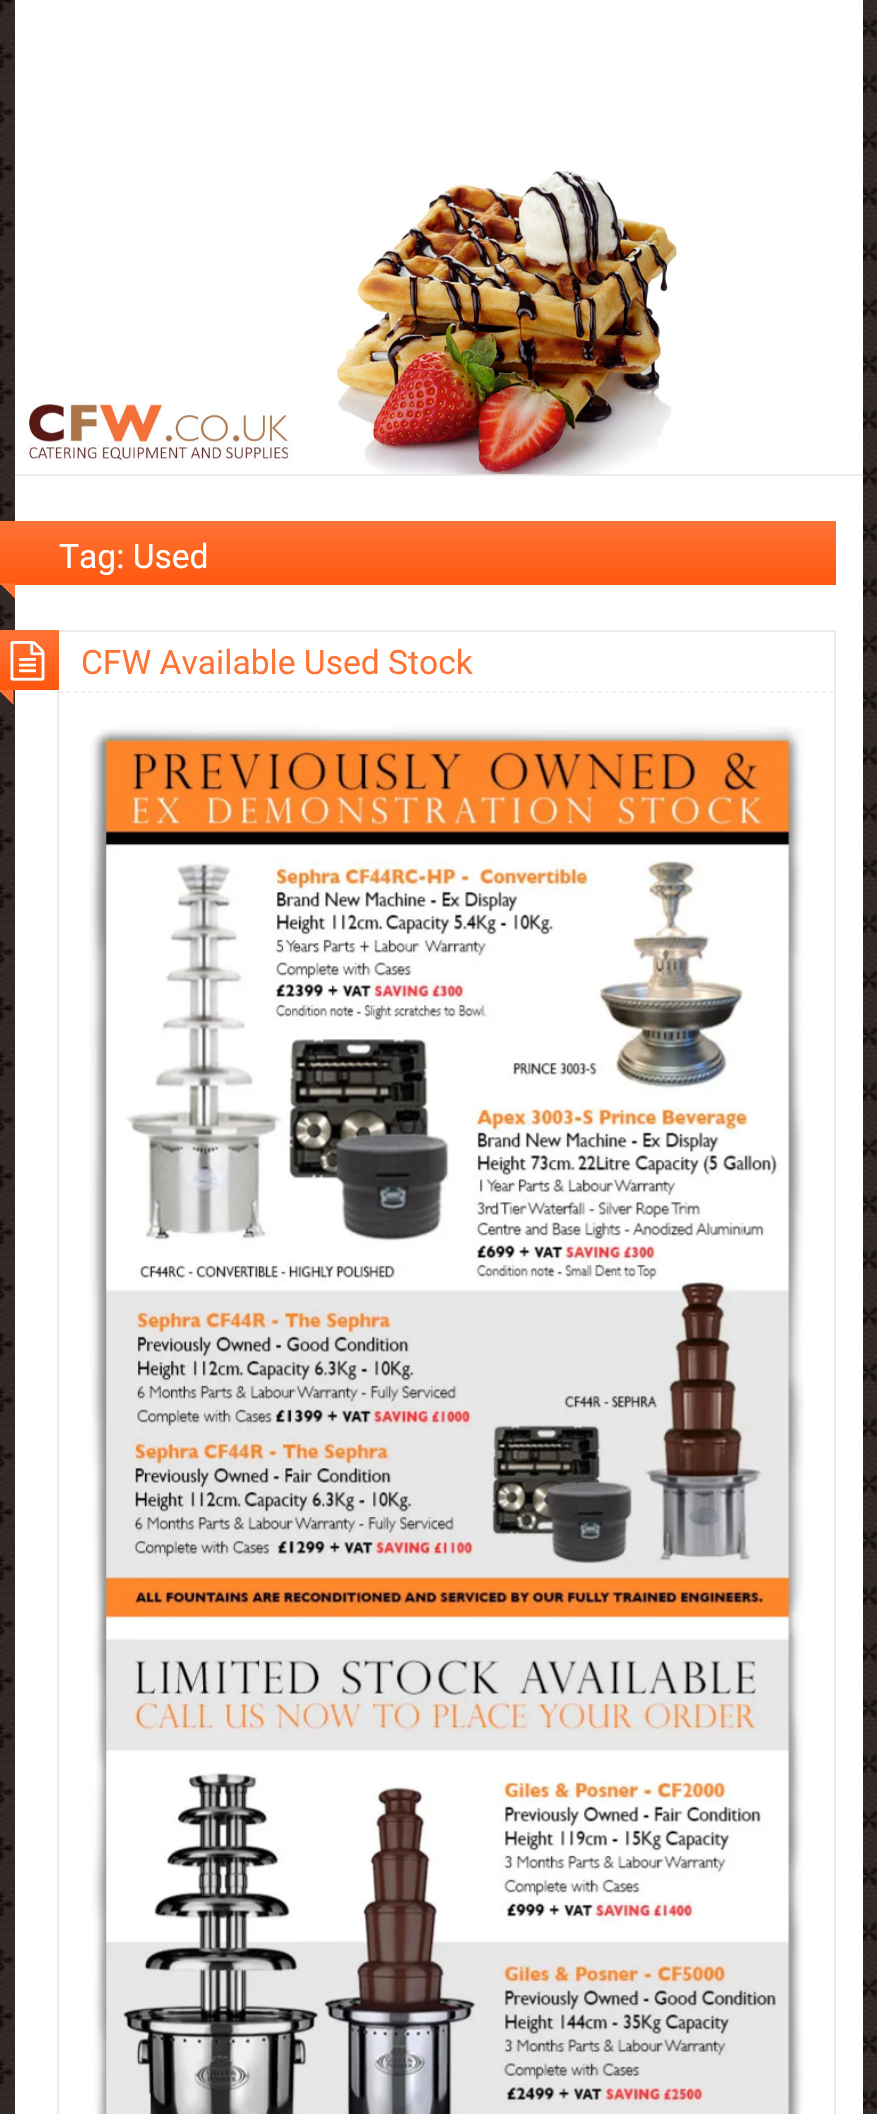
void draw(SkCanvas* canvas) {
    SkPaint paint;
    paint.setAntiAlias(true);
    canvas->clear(0xFFFFFFFF);
    canvas->drawImageRect(SkImages::DeferredFromEncodedData(SkData::MakeFromFileName("img1.png")), SkRect::MakeXYWH(0, 0, 877, 2114), SkSamplingOptions());
    paint.setColor(0xFFFFFFFF);
    canvas->drawRect(SkRect::MakeXYWH(15, 0, 848, 2114), paint);
    paint.setColor(0xFFEBEBEB);
    canvas->drawRect(SkRect::MakeXYWH(15, 474, 848, 2), paint);
    canvas->drawImageRect(SkImages::DeferredFromEncodedData(SkData::MakeFromFileName("img2.png")), SkRect::MakeXYWH(26, 170, 656, 305), SkSamplingOptions());
    {
        const SkColor colors[] = {0xFFFF7335, 0xFFFF570F};
        const float stops[] = {0, 1};
        const SkPoint ends[] = {{0, 521}, {0, 585}};
        paint.setShader(SkGradientShader::MakeLinear(ends, colors, stops, 2, SkTileMode::kClamp));
        paint.setAlpha(255);
    }
    canvas->drawRect(SkRect::MakeXYWH(0, 521, 836, 64), paint);
    SkFont font1(fontMgr->matchFamilyStyle("Roboto", SkFontStyle::Normal()), 33.6f);
    font1.setSubpixel(true);
    paint.setShader(nullptr);
    paint.setColor(0xFFFFFFFF);
    canvas->drawString("Tag: Used", 59, 568, font1, paint);
    paint.setColor(0xFFFF7335);
    canvas->drawPath(SkPathBuilder().moveTo(0, 583.5f).lineTo(15, 583.5f).lineTo(15, 598.5f).close().detach(), paint);
    paint.setStyle(SkPaint::kStroke_Style);
    paint.setStrokeWidth(2);
    paint.setColor(0xFFEBEBEB);
    canvas->drawRect(SkRect::MakeXYWH(58, 631, 777, 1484), paint);
    paint.setStyle(SkPaint::kFill_Style);
    {
        const SkColor colors[] = {0xFFFF7335, 0xFFFF570F};
        const float stops[] = {0, 1};
        const SkPoint ends[] = {{-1.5f, 630}, {-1.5f, 690}};
        paint.setShader(SkGradientShader::MakeLinear(ends, colors, stops, 2, SkTileMode::kClamp));
        paint.setAlpha(255);
    }
    canvas->drawRect(SkRect::MakeXYWH(0, 630, 59, 60), paint);
    canvas->drawImageRect(SkImages::DeferredFromEncodedData(SkData::MakeFromFileName("img3.png")), SkRect::MakeXYWH(10, 641, 35, 40), SkSamplingOptions());
    paint.setShader(nullptr);
    paint.setColor(0xFFFF7335);
    canvas->drawPath(SkPathBuilder().moveTo(-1.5f, 690).lineTo(13.5f, 690).lineTo(13.5f, 705).close().detach(), paint);
    paint.setStyle(SkPaint::kStroke_Style);
    paint.setStrokeWidth(1.5f);
    paint.setColor(0xFFEBEBEB);
    paint.setPathEffect(SkDashPathEffect::Make({{4.5f, 2.98f}}, 0));
    canvas->drawPath(SkPathBuilder().moveTo(58.5f, 692).lineTo(834, 692).detach(), paint);
    paint.setPathEffect(nullptr);
    paint.setStyle(SkPaint::kFill_Style);
    paint.setColor(0xFFFF7335);
    canvas->drawString("CFW Available Used Stock", 81, 674, font1, paint);
    canvas->drawImageRect(SkImages::DeferredFromEncodedData(SkData::MakeFromFileName("img4.png")), SkRect::MakeXYWH(89, 725, 715, 1389), SkSamplingOptions());
}
